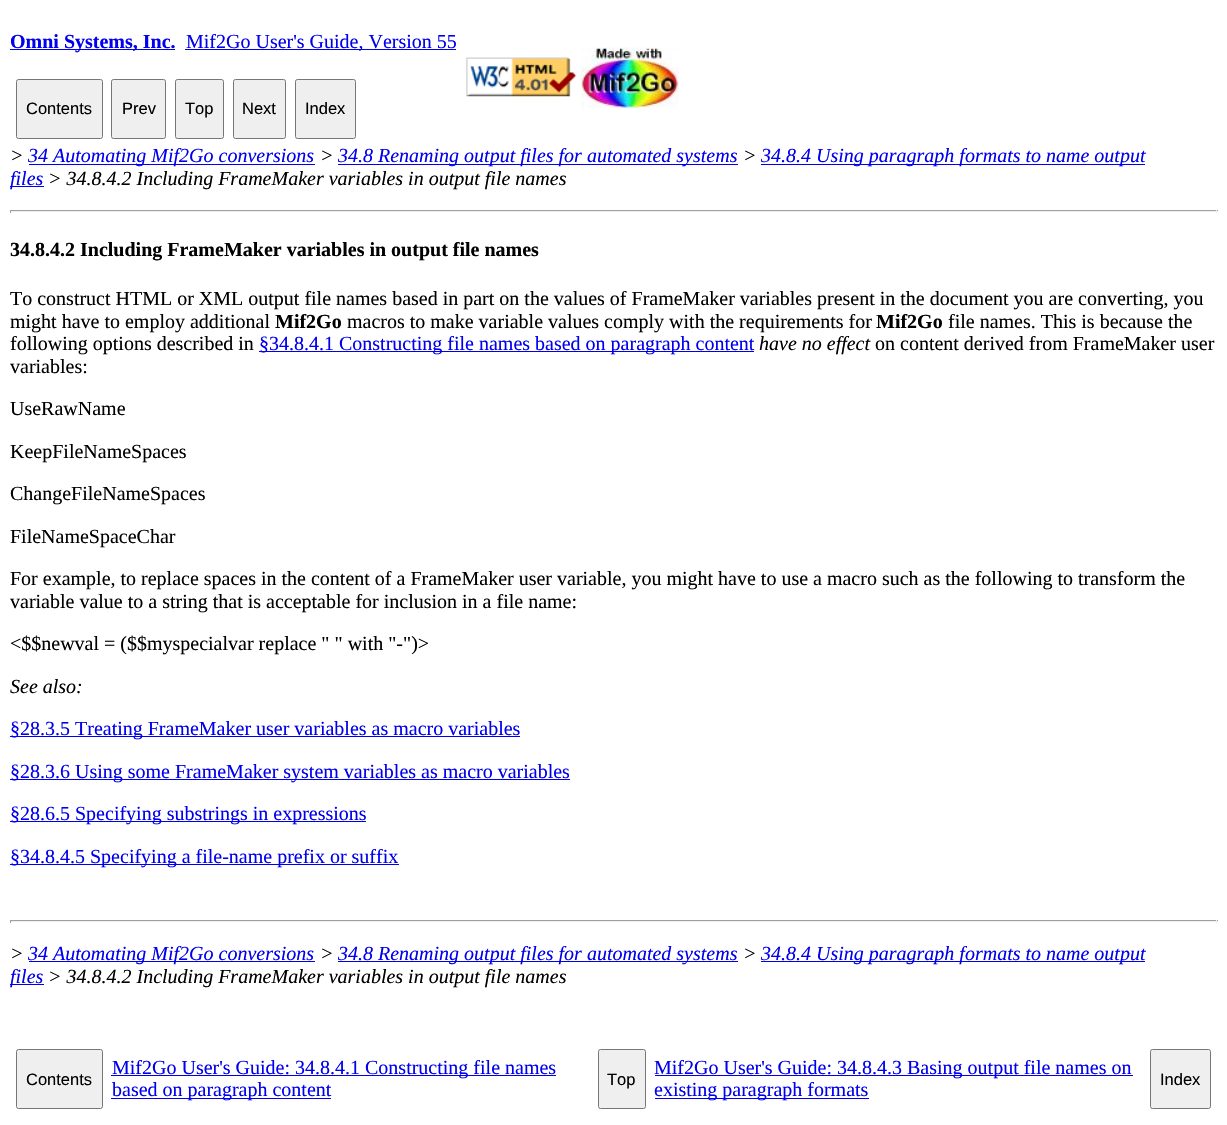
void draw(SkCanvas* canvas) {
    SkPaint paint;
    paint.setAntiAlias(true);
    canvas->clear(0xFFFFFFFF);
    paint.setColor(0xFF0000EE);
    canvas->drawRect(SkRect::MakeXYWH(10, 49, 165, 1), paint);
    SkFont font1(fontMgr->matchFamilyStyle("Liberation Serif", SkFontStyle::Bold()), 20);
    font1.setSubpixel(true);
    canvas->drawString("Omni Systems, Inc.", 10, 48, font1, paint);
    canvas->drawRect(SkRect::MakeXYWH(185, 49, 271, 1), paint);
    SkFont font2(fontMgr->matchFamilyStyle("Liberation Serif", SkFontStyle::Normal()), 20);
    font2.setSubpixel(true);
    canvas->drawString("Mif2Go User's Guide, Version 55", 186, 48, font2, paint);
    canvas->drawImageRect(SkImages::DeferredFromEncodedData(SkData::MakeFromFileName("img1.png")), SkRect::MakeXYWH(466, 57, 111, 40), SkSamplingOptions());
    canvas->drawImageRect(SkImages::DeferredFromEncodedData(SkData::MakeFromFileName("img2.png")), SkRect::MakeXYWH(581, 47, 98, 61), SkSamplingOptions());
    paint.setColor(0xFFEFEFEF);
    canvas->drawRoundRect(SkRect::MakeXYWH(16.5f, 79.5f, 86, 59), 2, 2, paint);
    paint.setStyle(SkPaint::kStroke_Style);
    paint.setStrokeWidth(1);
    paint.setColor(0xFF767676);
    canvas->drawRoundRect(SkRect::MakeXYWH(16.5f, 79.5f, 86, 59), 2, 2, paint);
    SkFont font3(fontMgr->matchFamilyStyle("Liberation Sans", SkFontStyle::Normal()), 16.5f);
    font3.setSubpixel(true);
    paint.setStyle(SkPaint::kFill_Style);
    paint.setColor(0xFF000000);
    canvas->drawString("Contents", 26, 114, font3, paint);
    paint.setColor(0xFFEFEFEF);
    canvas->drawRoundRect(SkRect::MakeXYWH(111.5f, 79.5f, 54, 59), 2, 2, paint);
    paint.setStyle(SkPaint::kStroke_Style);
    paint.setColor(0xFF767676);
    canvas->drawRoundRect(SkRect::MakeXYWH(111.5f, 79.5f, 54, 59), 2, 2, paint);
    paint.setStyle(SkPaint::kFill_Style);
    paint.setColor(0xFF000000);
    canvas->drawString("Prev", 122, 114, font3, paint);
    paint.setColor(0xFFEFEFEF);
    canvas->drawRoundRect(SkRect::MakeXYWH(175.5f, 79.5f, 48, 59), 2, 2, paint);
    paint.setStyle(SkPaint::kStroke_Style);
    paint.setColor(0xFF767676);
    canvas->drawRoundRect(SkRect::MakeXYWH(175.5f, 79.5f, 48, 59), 2, 2, paint);
    paint.setStyle(SkPaint::kFill_Style);
    paint.setColor(0xFF000000);
    canvas->drawString("Top", 185, 114, font3, paint);
    paint.setColor(0xFFEFEFEF);
    canvas->drawRoundRect(SkRect::MakeXYWH(233.5f, 79.5f, 52, 59), 2, 2, paint);
    paint.setStyle(SkPaint::kStroke_Style);
    paint.setColor(0xFF767676);
    canvas->drawRoundRect(SkRect::MakeXYWH(233.5f, 79.5f, 52, 59), 2, 2, paint);
    paint.setStyle(SkPaint::kFill_Style);
    paint.setColor(0xFF000000);
    canvas->drawString("Next", 242, 114, font3, paint);
    paint.setColor(0xFFEFEFEF);
    canvas->drawRoundRect(SkRect::MakeXYWH(295.5f, 79.5f, 60, 59), 2, 2, paint);
    paint.setStyle(SkPaint::kStroke_Style);
    paint.setColor(0xFF767676);
    canvas->drawRoundRect(SkRect::MakeXYWH(295.5f, 79.5f, 60, 59), 2, 2, paint);
    paint.setStyle(SkPaint::kFill_Style);
    paint.setColor(0xFF000000);
    canvas->drawString("Index", 305, 114, font3, paint);
    SkFont font4(fontMgr->matchFamilyStyle("Liberation Serif", SkFontStyle::Italic()), 20);
    font4.setSubpixel(true);
    canvas->drawString(">", 10, 162, font4, paint);
    paint.setColor(0xFF0000EE);
    canvas->drawRect(SkRect::MakeXYWH(29, 164, 286, 1), paint);
    canvas->drawString("34 Automating Mif2Go conversions", 28, 162, font4, paint);
    paint.setColor(0xFF000000);
    canvas->drawString(">", 320, 162, font4, paint);
    paint.setColor(0xFF0000EE);
    canvas->drawRect(SkRect::MakeXYWH(338, 164, 400, 1), paint);
    canvas->drawString("34.8 Renaming output files for automated systems", 338, 162, font4, paint);
    paint.setColor(0xFF000000);
    canvas->drawString(">", 743, 162, font4, paint);
    paint.setColor(0xFF0000EE);
    canvas->drawRect(SkRect::MakeXYWH(761, 164, 384, 1), paint);
    canvas->drawString("34.8.4 Using paragraph formats to name output", 761, 162, font4, paint);
    canvas->drawRect(SkRect::MakeXYWH(10, 186, 34, 1), paint);
    canvas->drawString("files", 10, 185, font4, paint);
    paint.setColor(0xFF000000);
    canvas->drawString("> 34.8.4.2 Including FrameMaker variables in output file names", 48, 185, font4, paint);
    paint.setColor(0xFF9F9F9F);
    canvas->drawRect(SkRect::MakeXYWH(10, 210, 1208, 1), paint);
    paint.setColor(0xFFEEEEEE);
    canvas->drawRect(SkRect::MakeXYWH(1216, 210, 1, 3), paint);
    canvas->drawRect(SkRect::MakeXYWH(10, 211, 1208, 1), paint);
    paint.setColor(0xFF9F9F9F);
    canvas->drawRect(SkRect::MakeXYWH(10, 210, 1, 3), paint);
    paint.setColor(0xFF000000);
    canvas->drawString("34.8.4.2 Including FrameMaker variables in output file names", 10, 256, font1, paint);
    canvas->drawString("To construct HTML or XML output file names based in part on the values of FrameMaker variables present in the document you are converting, you", 10, 305, font2, paint);
    canvas->drawString("might have to employ additional", 10, 328, font2, paint);
    canvas->drawString("Mif2Go", 275, 328, font1, paint);
    canvas->drawString("macros to make variable values comply with the requirements for", 347, 328, font2, paint);
    canvas->drawString("Mif2Go", 876, 328, font1, paint);
    canvas->drawString("file names. This is because the", 948, 328, font2, paint);
    canvas->drawString("following options described in", 10, 350, font2, paint);
    paint.setColor(0xFF0000EE);
    canvas->drawRect(SkRect::MakeXYWH(259, 351, 495, 1), paint);
    canvas->drawString("§34.8.4.1 Constructing file names based on paragraph content", 259, 350, font2, paint);
    paint.setColor(0xFF000000);
    canvas->drawString("have no effect", 759, 350, font4, paint);
    canvas->drawString("on content derived from FrameMaker user", 875, 350, font2, paint);
    canvas->drawString("variables:", 10, 373, font2, paint);
    canvas->drawString("UseRawName", 10, 415, font2, paint);
    canvas->drawString("KeepFileNameSpaces", 10, 458, font2, paint);
    canvas->drawString("ChangeFileNameSpaces", 10, 500, font2, paint);
    canvas->drawString("FileNameSpaceChar", 10, 543, font2, paint);
    canvas->drawString("For example, to replace spaces in the content of a FrameMaker user variable, you might have to use a macro such as the following to transform the", 10, 585, font2, paint);
    canvas->drawString("variable value to a string that is acceptable for inclusion in a file name:", 10, 608, font2, paint);
    canvas->drawString("<$$newval = ($$myspecialvar replace \" \" with \"-\")>", 10, 650, font2, paint);
    canvas->drawString("See also:", 10, 693, font4, paint);
    paint.setColor(0xFF0000EE);
    canvas->drawRect(SkRect::MakeXYWH(10, 736, 510, 1), paint);
    canvas->drawString("§28.3.5 Treating FrameMaker user variables as macro variables", 10, 735, font2, paint);
    canvas->drawRect(SkRect::MakeXYWH(10, 779, 560, 1), paint);
    canvas->drawString("§28.3.6 Using some FrameMaker system variables as macro variables", 10, 778, font2, paint);
    canvas->drawRect(SkRect::MakeXYWH(10, 821, 356, 1), paint);
    canvas->drawString("§28.6.5 Specifying substrings in expressions", 10, 820, font2, paint);
    canvas->drawRect(SkRect::MakeXYWH(10, 864, 389, 1), paint);
    canvas->drawString("§34.8.4.5 Specifying a file-name prefix or suffix", 10, 863, font2, paint);
    paint.setColor(0xFF9F9F9F);
    canvas->drawRect(SkRect::MakeXYWH(10, 920, 1208, 1), paint);
    paint.setColor(0xFFEEEEEE);
    canvas->drawRect(SkRect::MakeXYWH(1216, 920, 1, 3), paint);
    canvas->drawRect(SkRect::MakeXYWH(10, 921, 1208, 1), paint);
    paint.setColor(0xFF9F9F9F);
    canvas->drawRect(SkRect::MakeXYWH(10, 920, 1, 3), paint);
    paint.setColor(0xFF000000);
    canvas->drawString(">", 10, 960, font4, paint);
    paint.setColor(0xFF0000EE);
    canvas->drawRect(SkRect::MakeXYWH(29, 961, 286, 1), paint);
    canvas->drawString("34 Automating Mif2Go conversions", 28, 960, font4, paint);
    paint.setColor(0xFF000000);
    canvas->drawString(">", 320, 960, font4, paint);
    paint.setColor(0xFF0000EE);
    canvas->drawRect(SkRect::MakeXYWH(338, 961, 400, 1), paint);
    canvas->drawString("34.8 Renaming output files for automated systems", 338, 960, font4, paint);
    paint.setColor(0xFF000000);
    canvas->drawString(">", 743, 960, font4, paint);
    paint.setColor(0xFF0000EE);
    canvas->drawRect(SkRect::MakeXYWH(761, 961, 384, 1), paint);
    canvas->drawString("34.8.4 Using paragraph formats to name output", 761, 960, font4, paint);
    canvas->drawRect(SkRect::MakeXYWH(10, 984, 34, 1), paint);
    canvas->drawString("files", 10, 983, font4, paint);
    paint.setColor(0xFF000000);
    canvas->drawString("> 34.8.4.2 Including FrameMaker variables in output file names", 48, 983, font4, paint);
    paint.setColor(0xFFEFEFEF);
    canvas->drawRoundRect(SkRect::MakeXYWH(16.5f, 1049.5f, 86, 59), 2, 2, paint);
    paint.setStyle(SkPaint::kStroke_Style);
    paint.setColor(0xFF767676);
    canvas->drawRoundRect(SkRect::MakeXYWH(16.5f, 1049.5f, 86, 59), 2, 2, paint);
    paint.setStyle(SkPaint::kFill_Style);
    paint.setColor(0xFF000000);
    canvas->drawString("Contents", 26, 1085, font3, paint);
    paint.setColor(0xFF0000EE);
    canvas->drawRect(SkRect::MakeXYWH(111, 1075, 445, 1), paint);
    canvas->drawString("Mif2Go User's Guide: 34.8.4.1 Constructing file names", 112, 1074, font2, paint);
    canvas->drawRect(SkRect::MakeXYWH(111, 1098, 220, 1), paint);
    canvas->drawString("based on paragraph content", 112, 1096, font2, paint);
    paint.setColor(0xFFEFEFEF);
    canvas->drawRoundRect(SkRect::MakeXYWH(598.5f, 1049.5f, 47, 59), 2, 2, paint);
    paint.setStyle(SkPaint::kStroke_Style);
    paint.setColor(0xFF767676);
    canvas->drawRoundRect(SkRect::MakeXYWH(598.5f, 1049.5f, 47, 59), 2, 2, paint);
    paint.setStyle(SkPaint::kFill_Style);
    paint.setColor(0xFF000000);
    canvas->drawString("Top", 607, 1085, font3, paint);
    paint.setColor(0xFF0000EE);
    canvas->drawRect(SkRect::MakeXYWH(655, 1075, 478, 1), paint);
    canvas->drawString("Mif2Go User's Guide: 34.8.4.3 Basing output file names on", 654, 1074, font2, paint);
    canvas->drawRect(SkRect::MakeXYWH(655, 1098, 214, 1), paint);
    canvas->drawString("existing paragraph formats", 654, 1096, font2, paint);
    paint.setColor(0xFFEFEFEF);
    canvas->drawRoundRect(SkRect::MakeXYWH(1150.5f, 1049.5f, 60, 59), 2, 2, paint);
    paint.setStyle(SkPaint::kStroke_Style);
    paint.setColor(0xFF767676);
    canvas->drawRoundRect(SkRect::MakeXYWH(1150.5f, 1049.5f, 60, 59), 2, 2, paint);
    paint.setStyle(SkPaint::kFill_Style);
    paint.setColor(0xFF000000);
    canvas->drawString("Index", 1160, 1085, font3, paint);
}
